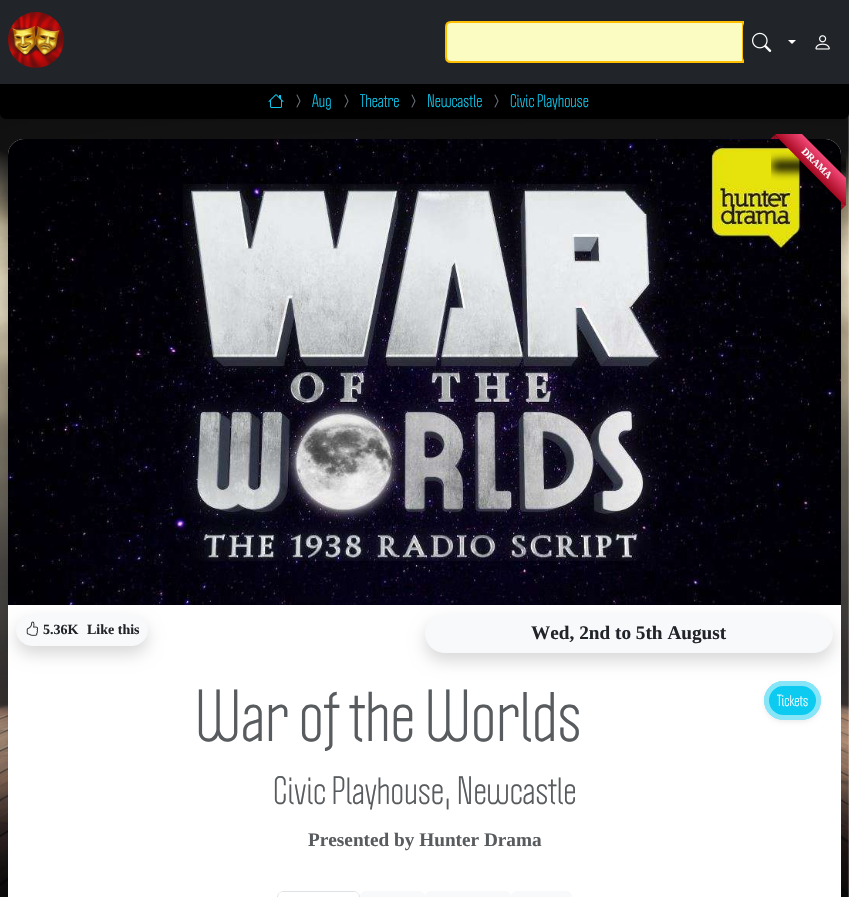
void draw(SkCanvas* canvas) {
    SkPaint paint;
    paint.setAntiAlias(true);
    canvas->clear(0xFFFFFFFF);
    canvas->drawImageRect(SkImages::DeferredFromEncodedData(SkData::MakeFromFileName("img1.png")), SkRect::MakeXYWH(0, 113, 849, 784), SkSamplingOptions());
    paint.setColor(0x26000000);
    paint.setMaskFilter(SkMaskFilter::MakeBlur(kNormal_SkBlurStyle, 8));
    canvas->drawRoundRect(SkRect::MakeXYWH(8, 147, 833, 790), 16, 16, paint);
    paint.setMaskFilter(nullptr);
    paint.setColor(0xFFFFFFFF);
    canvas->drawRoundRect(SkRect::MakeXYWH(8, 139, 833, 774), 16, 16, paint);
    canvas->save();
    canvas->clipRect(SkRect::MakeXYWH(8, 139, 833, 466));
    paint.setColor(0xFF0E0E0E);
    paint.setMaskFilter(SkMaskFilter::MakeBlur(kNormal_SkBlurStyle, 5));
    canvas->drawRoundRect(SkRect::MakeXYWH(13, 149, 823, 456), 11, 11, paint);
    paint.setMaskFilter(nullptr);
    canvas->restore();
    canvas->drawImageRect(SkImages::DeferredFromEncodedData(SkData::MakeFromFileName("img7.png")), SkRect::MakeXYWH(8, 139, 833, 466), SkSamplingOptions());
    canvas->save();
    canvas->clipRect(SkRect::MakeXYWH(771, 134, 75, 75));
    paint.setColor(0xFF000000);
    paint.setMaskFilter(SkMaskFilter::MakeBlur(kNormal_SkBlurStyle, 5));
    canvas->drawRect(SkRect::MakeXYWH(772, 161, 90, 10), paint);
    paint.setMaskFilter(nullptr);
    canvas->restore();
    canvas->save();
    canvas->clipRect(SkRect::MakeXYWH(771, 134, 75, 75));
    {
        const SkColor colors[] = {0xFFF44979, 0xFFA70A22};
        const float stops[] = {0, 1};
        const SkPoint ends[] = {{824, 156}, {810, 170}};
        paint.setShader(SkGradientShader::MakeLinear(ends, colors, stops, 2, SkTileMode::kClamp));
        paint.setAlpha(255);
    }
    canvas->drawPath(SkPathBuilder().moveTo(789, 121).lineTo(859, 191).lineTo(845, 206).lineTo(775, 135).close().detach(), paint);
    canvas->restore();
    paint.setShader(nullptr);
    paint.setColor(0xFF0E0E0E);
    paint.setMaskFilter(SkMaskFilter::MakeBlur(kNormal_SkBlurStyle, 5));
    canvas->drawRoundRect(SkRect::MakeXYWH(5, 94, 839, 25), 1, 1, paint);
    paint.setMaskFilter(nullptr);
    paint.setColor(0xFF212529);
    canvas->drawRect(SkRect::MakeXYWH(0, 0, 849, 84), paint);
    canvas->drawImageRect(SkImages::DeferredFromEncodedData(SkData::MakeFromFileName("img2.png")), SkRect::MakeXYWH(8, 12, 56, 56), SkSamplingOptions());
    paint.setColor(0xFFFAFCC1);
    canvas->drawPath(SkPathBuilder().moveTo(451, 22).lineTo(743, 22).lineTo(743, 62).lineTo(451, 62).cubicTo(448, 62, 446, 60, 446, 57).lineTo(446, 27).cubicTo(446, 24, 448, 22, 451, 22).close().detach(), paint);
    paint.setStyle(SkPaint::kStroke_Style);
    paint.setStrokeWidth(2);
    paint.setColor(0xFFFFBE00);
    canvas->drawPath(SkPathBuilder().moveTo(451, 22).lineTo(743, 22).lineTo(743, 62).lineTo(451, 62).cubicTo(448, 62, 446, 60, 446, 57).lineTo(446, 27).cubicTo(446, 24, 448, 22, 451, 22).close().detach(), paint);
    paint.setStyle(SkPaint::kFill_Style);
    paint.setColor(0xFF212529);
    canvas->drawRoundRect(SkRect::MakeXYWH(743.5f, 21.5f, 37, 41), 5.5f, 5.5f, paint);
    paint.setStyle(SkPaint::kStroke_Style);
    paint.setStrokeWidth(1);
    canvas->drawRoundRect(SkRect::MakeXYWH(743.5f, 21.5f, 37, 41), 5.5f, 5.5f, paint);
    canvas->drawImageRect(SkImages::DeferredFromEncodedData(SkData::MakeFromFileName("img3.png")), SkRect::MakeXYWH(752, 32, 20, 20), SkSamplingOptions());
    paint.setStyle(SkPaint::kFill_Style);
    paint.setColor(0xFFFFFFFF);
    canvas->drawPath(SkPathBuilder().moveTo(788, 40).lineTo(796, 40).lineTo(792, 44).close().detach(), paint);
    canvas->drawImageRect(SkImages::DeferredFromEncodedData(SkData::MakeFromFileName("img4.png")), SkRect::MakeXYWH(815, 35, 15, 15), SkSamplingOptions());
    paint.setColor(0xFF000000);
    canvas->drawPath(SkPathBuilder().moveTo(0, 84).lineTo(849, 84).lineTo(849, 113).cubicTo(849, 116.5f, 846.5f, 119, 843, 119).lineTo(6, 119).cubicTo(2.5f, 119, 0, 116.5f, 0, 113).close().detach(), paint);
    canvas->drawImageRect(SkImages::DeferredFromEncodedData(SkData::MakeFromFileName("img5.png")), SkRect::MakeXYWH(268, 94, 16, 14), SkSamplingOptions());
    canvas->drawImageRect(SkImages::DeferredFromEncodedData(SkData::MakeFromFileName("img6.png")), SkRect::MakeXYWH(296, 94, 5, 14), SkSamplingOptions());
    SkFont font1(fontMgr->matchFamilyStyle("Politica", SkFontStyle::Normal()), 16);
    font1.setSubpixel(true);
    paint.setColor(0xFF0DCAF0);
    canvas->drawString("Aug", 312, 107, font1, paint);
    canvas->drawImageRect(SkImages::DeferredFromEncodedData(SkData::MakeFromFileName("img6.png")), SkRect::MakeXYWH(344, 94, 5, 14), SkSamplingOptions());
    canvas->drawString("Theatre", 360, 107, font1, paint);
    canvas->drawImageRect(SkImages::DeferredFromEncodedData(SkData::MakeFromFileName("img6.png")), SkRect::MakeXYWH(411, 94, 5, 14), SkSamplingOptions());
    canvas->drawString("Newcastle", 427, 107, font1, paint);
    canvas->drawImageRect(SkImages::DeferredFromEncodedData(SkData::MakeFromFileName("img6.png")), SkRect::MakeXYWH(494, 94, 5, 14), SkSamplingOptions());
    canvas->drawString("Civic Playhouse", 510, 107, font1, paint);
    paint.setColor(0xFFA70A22);
    canvas->drawPath(SkPathBuilder().moveTo(774.5f, 135).lineTo(779, 139).lineTo(774.5f, 139).close().detach(), paint);
    canvas->drawPath(SkPathBuilder().moveTo(770.5f, 139).lineTo(774.5f, 135).lineTo(774.5f, 139).close().detach(), paint);
    SkFont font2(fontMgr->matchFamilyStyle("Liberation Serif", SkFontStyle::Bold()), 10);
    font2.setSubpixel(true);
    paint.setColor(0xFFFFFFFF);
    canvas->save();
    canvas->rotate(45, 801, 152);
    canvas->drawString("DRAMA", 801, 152, font2, paint);
    canvas->restore();
    paint.setColor(0xFFA70A22);
    canvas->drawPath(SkPathBuilder().moveTo(841, 201.5f).lineTo(845.5f, 205.5f).lineTo(841, 205.5f).close().detach(), paint);
    canvas->drawPath(SkPathBuilder().moveTo(845.5f, 205.5f).lineTo(841, 210).lineTo(841, 205.5f).close().detach(), paint);
    paint.setColor(0x26000000);
    paint.setMaskFilter(SkMaskFilter::MakeBlur(kNormal_SkBlurStyle, 8));
    canvas->drawRoundRect(SkRect::MakeXYWH(16, 622, 132, 32), 16, 16, paint);
    paint.setMaskFilter(nullptr);
    paint.setColor(0xFFF8F9FA);
    canvas->drawRoundRect(SkRect::MakeXYWH(16.5f, 614.5f, 131, 31), 15.5f, 15.5f, paint);
    paint.setStyle(SkPaint::kStroke_Style);
    canvas->drawRoundRect(SkRect::MakeXYWH(16.5f, 614.5f, 131, 31), 15.5f, 15.5f, paint);
    canvas->drawImageRect(SkImages::DeferredFromEncodedData(SkData::MakeFromFileName("img8.png")), SkRect::MakeXYWH(26, 621, 12, 15), SkSamplingOptions());
    SkFont font3(fontMgr->matchFamilyStyle("Liberation Serif", SkFontStyle::Bold()), 14);
    font3.setSubpixel(true);
    paint.setStyle(SkPaint::kFill_Style);
    paint.setColor(0xFF212529);
    canvas->drawString("5.36K", 43, 634, font3, paint);
    canvas->drawString("Like this", 87, 634, font3, paint);
    paint.setColor(0x26000000);
    paint.setMaskFilter(SkMaskFilter::MakeBlur(kNormal_SkBlurStyle, 8));
    canvas->drawRoundRect(SkRect::MakeXYWH(425, 622, 408, 39), 19.5f, 19.5f, paint);
    paint.setMaskFilter(nullptr);
    paint.setColor(0xFFF8F9FA);
    canvas->drawRoundRect(SkRect::MakeXYWH(425.5f, 614.5f, 407, 38), 19, 19, paint);
    paint.setStyle(SkPaint::kStroke_Style);
    canvas->drawRoundRect(SkRect::MakeXYWH(425.5f, 614.5f, 407, 38), 19, 19, paint);
    SkFont font4(fontMgr->matchFamilyStyle("Liberation Serif", SkFontStyle::Bold()), 19.25f);
    font4.setSubpixel(true);
    paint.setStyle(SkPaint::kFill_Style);
    paint.setColor(0xFF212529);
    canvas->drawString("Wed, 2nd to 5th August", 531, 639, font4, paint);
    SkFont font5(fontMgr->matchFamilyStyle("Politica", SkFontStyle::Normal()), 64.25f);
    font5.setSubpixel(true);
    paint.setColor(0xFF595C5F);
    canvas->drawString("War of the Worlds", 195, 741, font5, paint);
    paint.setColor(0x12000000);
    paint.setMaskFilter(SkMaskFilter::MakeBlur(kNormal_SkBlurStyle, 2));
    canvas->drawRoundRect(SkRect::MakeXYWH(764, 683, 57, 39), 19.5f, 19.5f, paint);
    paint.setMaskFilter(nullptr);
    paint.setColor(0xFF0DCAF0);
    canvas->drawRoundRect(SkRect::MakeXYWH(764, 681, 57, 39), 19.5f, 19.5f, paint);
    paint.setStyle(SkPaint::kStroke_Style);
    paint.setStrokeWidth(5);
    paint.setColor(0x80FFFFFF);
    canvas->drawRoundRect(SkRect::MakeXYWH(766.5f, 683.5f, 52, 34), 17, 17, paint);
    SkFont font6(fontMgr->matchFamilyStyle("Politica", SkFontStyle::Normal()), 14);
    font6.setSubpixel(true);
    paint.setStyle(SkPaint::kFill_Style);
    paint.setColor(0xFFFFFFFF);
    canvas->drawString("Tickets", 777, 706, font6, paint);
    SkFont font7(fontMgr->matchFamilyStyle("Politica", SkFontStyle::Normal()), 34.75f);
    font7.setSubpixel(true);
    paint.setColor(0xFF595C5F);
    canvas->drawString("Civic Playhouse, Newcastle", 273, 804, font7, paint);
    canvas->drawString("Presented by Hunter Drama", 308, 846, font4, paint);
    paint.setColor(0xFFDEE2E6);
    canvas->drawPath(SkPathBuilder().moveTo(283, 891).cubicTo(282, 891, 280, 892, 279, 893).lineTo(282, 892).lineTo(355, 892).lineTo(358, 893).cubicTo(357, 892, 356, 891, 354, 891).close().detach(), paint);
    canvas->drawPath(SkPathBuilder().moveTo(360, 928).lineTo(360, 897).cubicTo(360, 895.5f, 359, 894, 358, 893).lineTo(357.5f, 893.5f).cubicTo(358.5f, 894, 359, 895.5f, 359, 897).lineTo(359, 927).close().detach(), paint);
    canvas->drawPath(SkPathBuilder().moveTo(277, 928).lineTo(278, 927).lineTo(278, 897).cubicTo(278, 895.5f, 278.5f, 894, 279.5f, 893.5f).lineTo(279, 893).cubicTo(278, 894, 277, 895.5f, 277, 897).close().detach(), paint);
    paint.setColor(0xFFF8F9FA);
    canvas->drawRoundRect(SkRect::MakeXYWH(360, 891, 65, 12), 6, 6, paint);
    canvas->drawRoundRect(SkRect::MakeXYWH(425, 891, 86, 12), 6, 6, paint);
    canvas->drawRoundRect(SkRect::MakeXYWH(511, 891, 61, 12), 6, 6, paint);
}
